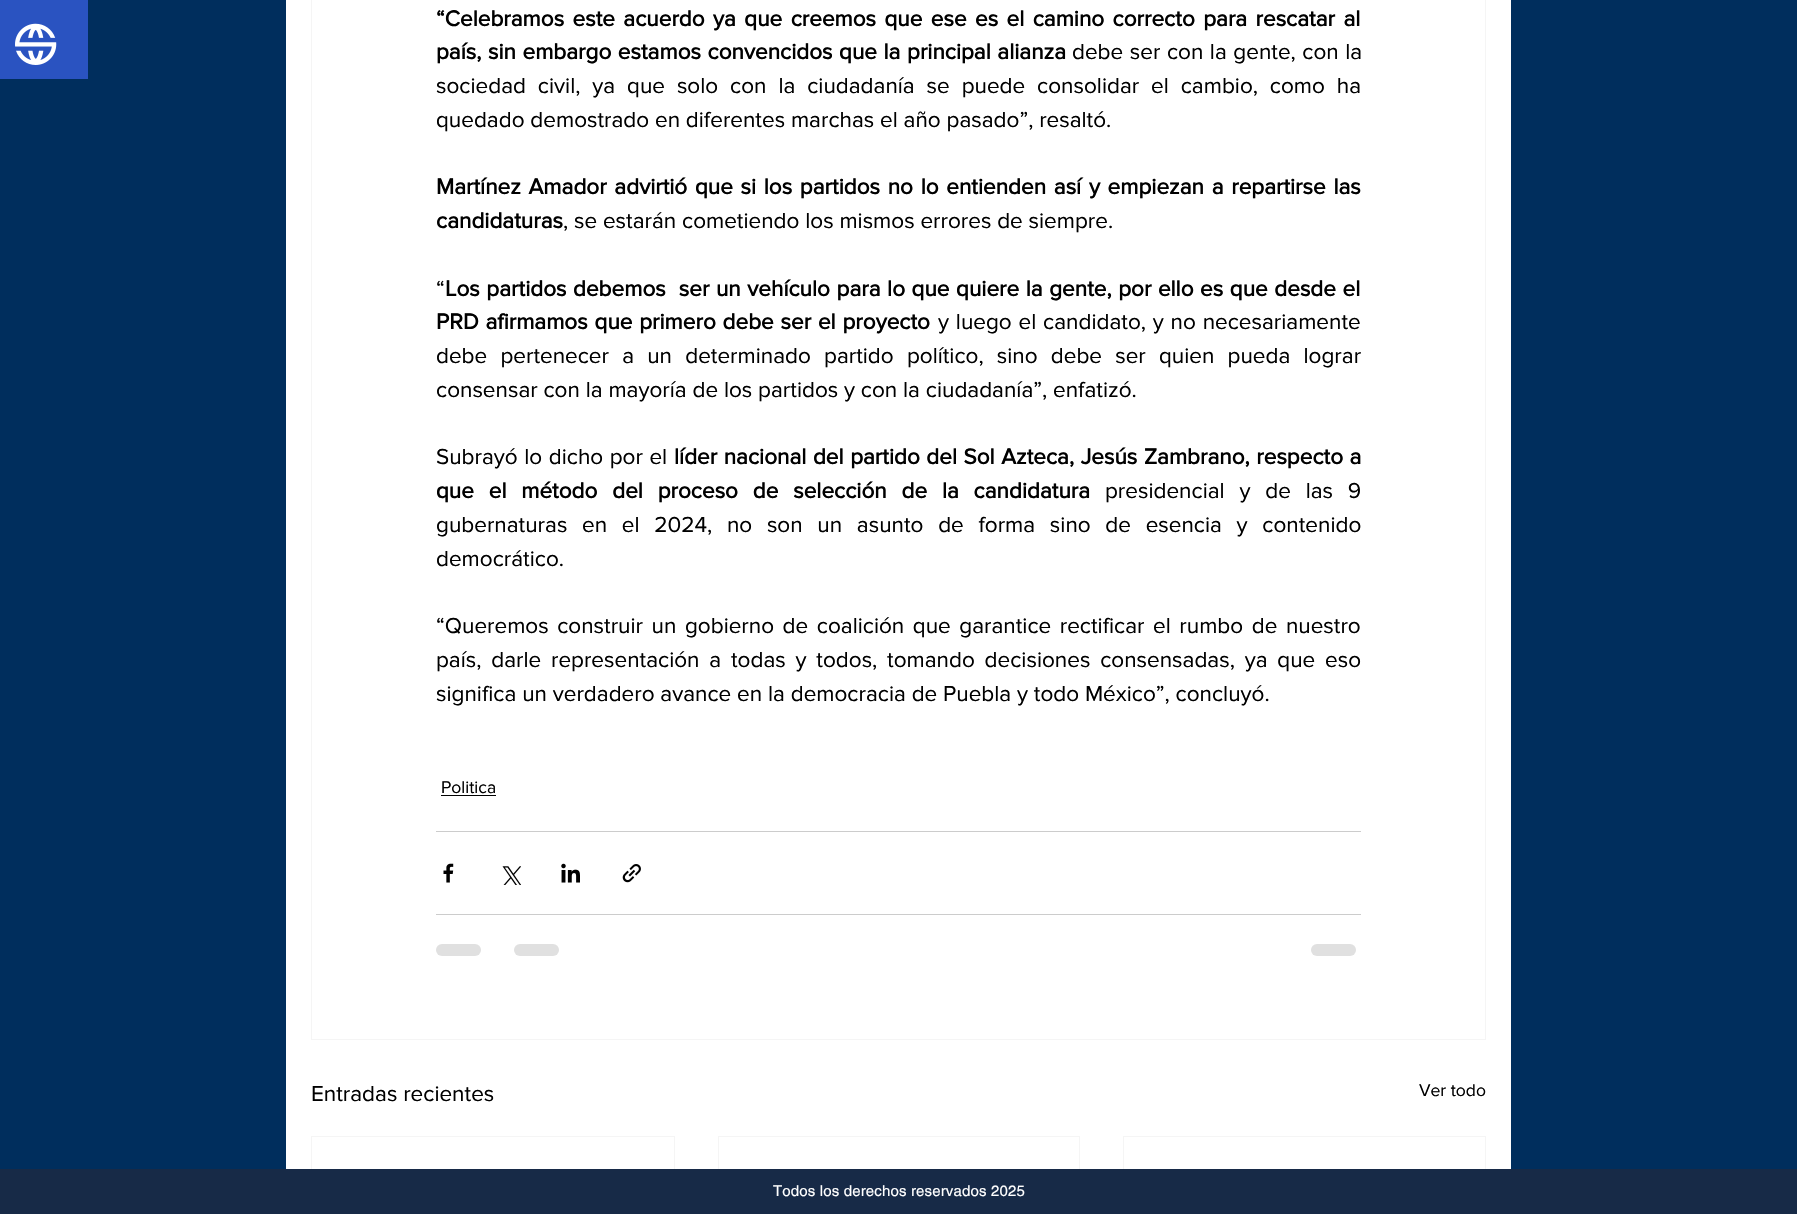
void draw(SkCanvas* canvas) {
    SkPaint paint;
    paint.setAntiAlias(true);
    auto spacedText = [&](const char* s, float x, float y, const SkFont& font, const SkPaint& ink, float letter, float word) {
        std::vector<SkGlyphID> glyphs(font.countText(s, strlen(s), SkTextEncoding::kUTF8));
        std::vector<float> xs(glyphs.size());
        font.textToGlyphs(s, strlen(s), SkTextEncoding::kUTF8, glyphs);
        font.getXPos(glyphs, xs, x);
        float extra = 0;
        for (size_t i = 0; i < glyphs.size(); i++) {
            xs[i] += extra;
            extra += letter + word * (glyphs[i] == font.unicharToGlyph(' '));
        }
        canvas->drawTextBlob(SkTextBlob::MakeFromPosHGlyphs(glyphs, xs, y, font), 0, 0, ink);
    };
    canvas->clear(0xFF002E5D);
    paint.setColor(0xFF2A53C1);
    canvas->drawRect(SkRect::MakeXYWH(0, 0, 88, 79), paint);
    canvas->drawImageRect(SkImages::DeferredFromEncodedData(SkData::MakeFromFileName("img1.png")), SkRect::MakeXYWH(15, 23, 42, 42), SkSamplingOptions());
    paint.setColor(0xFFFFFFFF);
    canvas->drawRect(SkRect::MakeXYWH(286, 0, 1225, 1169), paint);
    paint.setStyle(SkPaint::kStroke_Style);
    paint.setStrokeWidth(1);
    paint.setColor(0xFFF5F5F5);
    canvas->drawRect(SkRect::MakeXYWH(311.5f, -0.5f, 1174, 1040), paint);
    SkFont font1(fontMgr->matchFamilyStyle("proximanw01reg", SkFontStyle::Bold()), 22.5f);
    font1.setSubpixel(true);
    paint.setStyle(SkPaint::kFill_Style);
    paint.setColor(0xFF000000);
    spacedText("“Celebramos este acuerdo ya que creemos que ese es el camino correcto para rescatar al", 436, 26, font1, paint, 0, 2.6f);
    spacedText("país, sin embargo estamos convencidos que la principal alianza", 436, 59, font1, paint, 0, 0.75f);
    SkFont font2(fontMgr->matchFamilyStyle("proximanw01reg", SkFontStyle::Normal()), 22.5f);
    font2.setSubpixel(true);
    spacedText("debe ser con la gente, con la", 1072, 59, font2, paint, 0, 0.75f);
    spacedText("sociedad civil, ya que solo con la ciudadanía se puede consolidar el cambio, como ha", 436, 93, font2, paint, 0, 6.1f);
    canvas->drawString("quedado demostrado en diferentes marchas el año pasado”, resaltó.", 436, 127, font2, paint);
    spacedText("Martínez Amador advirtió que si los partidos no lo entienden así y empiezan a repartirse las", 436, 194, font1, paint, 0, 1.9f);
    canvas->drawString("candidaturas", 436, 228, font1, paint);
    canvas->drawString(", se estarán cometiendo los mismos errores de siempre.", 563, 228, font2, paint);
    canvas->drawString("“", 436, 296, font2, paint);
    spacedText("Los partidos debemos  ser un vehículo para lo que quiere la gente, por ello es que desde el", 445, 296, font1, paint, 0, 0.75f);
    spacedText("PRD afirmamos que primero debe ser el proyecto", 436, 329, font1, paint, 0, 1);
    spacedText("y luego el candidato, y no necesariamente", 938, 329, font2, paint, 0, 1);
    spacedText("debe pertenecer a un determinado partido político, sino debe ser quien pueda lograr", 436, 363, font2, paint, 0, 7.4f);
    canvas->drawString("consensar con la mayoría de los partidos y con la ciudadanía”, enfatizó.", 436, 397, font2, paint);
    spacedText("Subrayó lo dicho por el", 436, 464, font2, paint, 0, 0.75f);
    spacedText("líder nacional del partido del Sol Azteca, Jesús Zambrano, respecto a", 674, 464, font1, paint, 0, 0.75f);
    spacedText("que el método del proceso de selección de la candidatura", 436, 498, font1, paint, 0, 9);
    spacedText("presidencial y de las 9", 1105, 498, font2, paint, 0, 9);
    spacedText("gubernaturas en el 2024, no son un asunto de forma sino de esencia y contenido", 436, 532, font2, paint, 0, 8.9f);
    canvas->drawString("democrático.", 436, 566, font2, paint);
    spacedText("“Queremos construir un gobierno de coalición que garantice rectificar el rumbo de nuestro", 436, 633, font2, paint, 0, 2.75f);
    spacedText("país, darle representación a todas y todos, tomando decisiones consensadas, ya que eso", 436, 667, font2, paint, 0, 4);
    canvas->drawString("significa un verdadero avance en la democracia de Puebla y todo México”, concluyó.", 436, 701, font2, paint);
    SkFont font3(fontMgr->matchFamilyStyle("proximanw01reg", SkFontStyle::Normal()), 17.5f);
    font3.setSubpixel(true);
    canvas->drawString("Politica", 441, 793, font3, paint);
    canvas->drawRect(SkRect::MakeXYWH(441, 795, 55, 1), paint);
    paint.setColor(0xFFCCCCCC);
    canvas->drawRect(SkRect::MakeXYWH(436, 831, 925, 1), paint);
    canvas->drawImageRect(SkImages::DeferredFromEncodedData(SkData::MakeFromFileName("img2.png")), SkRect::MakeXYWH(443, 863, 11, 20), SkSamplingOptions());
    canvas->drawImageRect(SkImages::DeferredFromEncodedData(SkData::MakeFromFileName("img3.png")), SkRect::MakeXYWH(502, 866, 19, 19), SkSamplingOptions());
    canvas->drawImageRect(SkImages::DeferredFromEncodedData(SkData::MakeFromFileName("img4.png")), SkRect::MakeXYWH(561, 863, 19, 20), SkSamplingOptions());
    canvas->drawImageRect(SkImages::DeferredFromEncodedData(SkData::MakeFromFileName("img5.png")), SkRect::MakeXYWH(622, 864, 19, 19), SkSamplingOptions());
    canvas->drawRect(SkRect::MakeXYWH(436, 914, 925, 1), paint);
    paint.setColor(0xFFE0E0E0);
    canvas->drawRoundRect(SkRect::MakeXYWH(436, 944, 45, 12), 6, 6, paint);
    canvas->drawRoundRect(SkRect::MakeXYWH(514, 944, 45, 12), 6, 6, paint);
    canvas->drawRoundRect(SkRect::MakeXYWH(1311, 944, 45, 12), 6, 6, paint);
    paint.setColor(0xFF000000);
    canvas->drawString("Entradas recientes", 311, 1101, font2, paint);
    canvas->drawString("Ver todo", 1419, 1096, font3, paint);
    paint.setStyle(SkPaint::kStroke_Style);
    paint.setColor(0xFFF5F5F5);
    canvas->drawRect(SkRect::MakeXYWH(311.5f, 1136.5f, 363, 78), paint);
    canvas->drawRect(SkRect::MakeXYWH(718.5f, 1136.5f, 361, 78), paint);
    canvas->drawRect(SkRect::MakeXYWH(1123.5f, 1136.5f, 362, 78), paint);
    paint.setStyle(SkPaint::kFill_Style);
    paint.setColor(0xFF172A47);
    canvas->drawRect(SkRect::MakeXYWH(0, 1169, 1797, 45), paint);
    SkFont font4(fontMgr->matchFamilyStyle("helvetica", SkFontStyle::Normal()), 15);
    font4.setSubpixel(true);
    paint.setColor(0xFFFFFFFF);
    spacedText("Todos los derechos reservados 2025", 773, 1196, font4, paint, 0.15f, 0);
}
